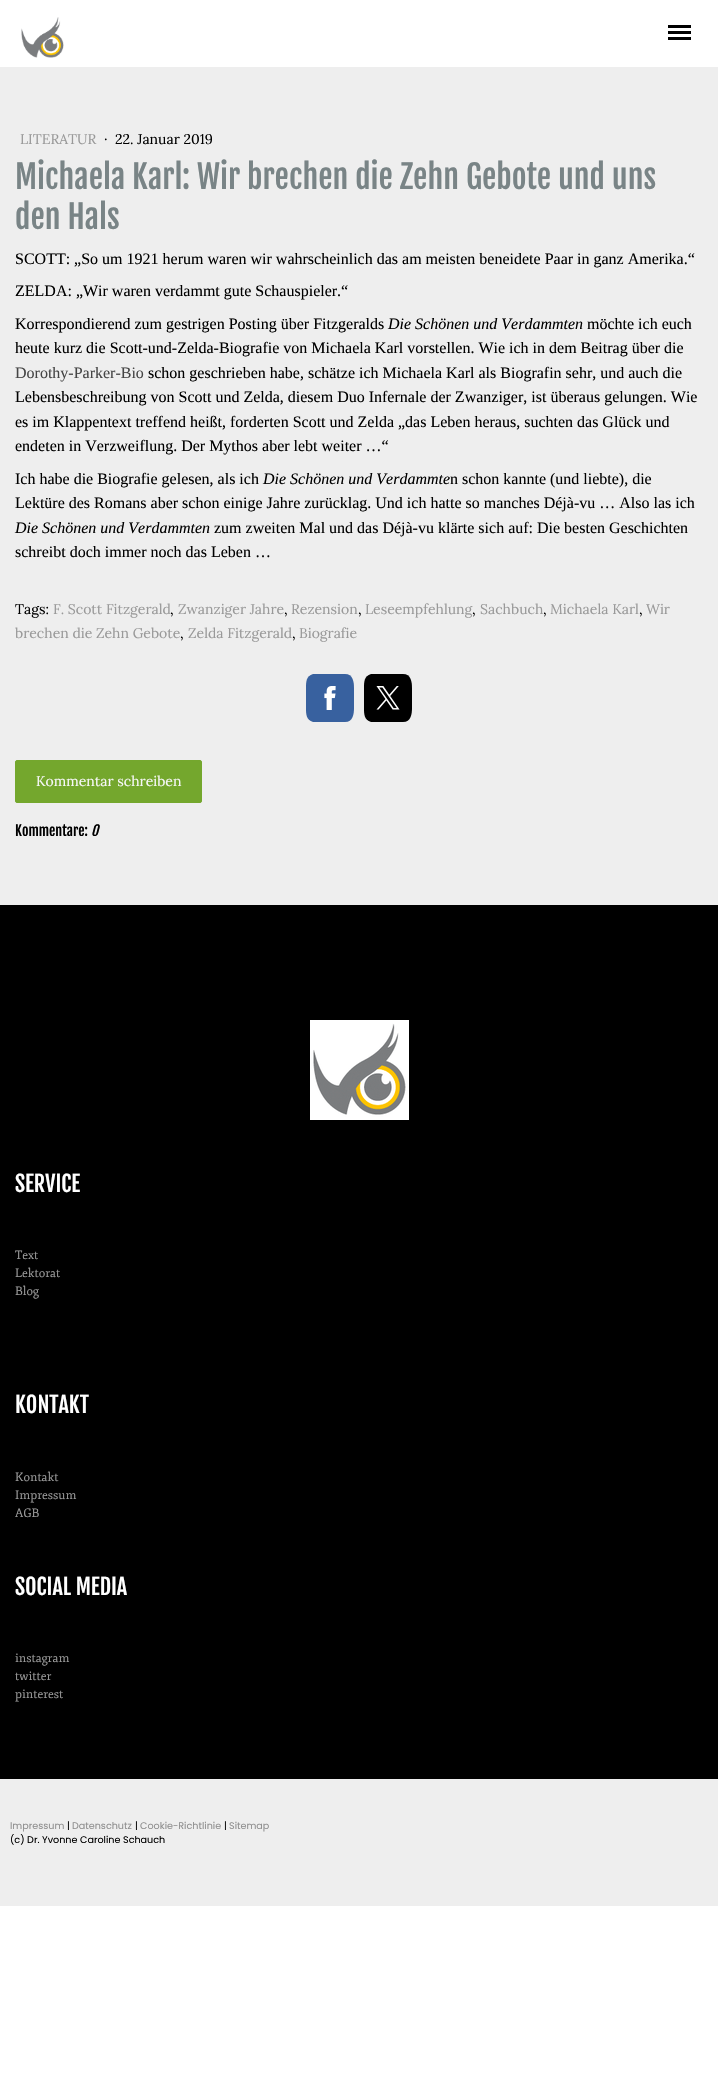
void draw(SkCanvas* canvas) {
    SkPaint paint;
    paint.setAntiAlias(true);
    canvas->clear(0xFFFFFFFF);
    canvas->drawImageRect(SkImages::DeferredFromEncodedData(SkData::MakeFromFileName("img1.png")), SkRect::MakeXYWH(21, 17, 43, 41), SkSamplingOptions());
    paint.setColor(0xFF000000);
    canvas->drawRect(SkRect::MakeXYWH(668, 31, 23, 3), paint);
    canvas->drawRect(SkRect::MakeXYWH(668, 25, 23, 3), paint);
    canvas->drawRect(SkRect::MakeXYWH(668, 37, 23, 3), paint);
    paint.setColor(0xFFEEEEEE);
    canvas->drawRect(SkRect::MakeXYWH(0, 67, 718, 838), paint);
    SkFont font1(fontMgr->matchFamilyStyle("Lora", SkFontStyle::Normal()), 14);
    font1.setSubpixel(true);
    paint.setColor(0xFF999999);
    canvas->drawString("LITERATUR", 20, 144, font1, paint);
    paint.setColor(0xFF000000);
    canvas->drawString("·", 104, 144, font1, paint);
    canvas->drawString("22. Januar 2019", 115, 144, font1, paint);
    SkFont font2(fontMgr->matchFamilyStyle("Fjalla One", SkFontStyle::Normal()), 32);
    font2.setSubpixel(true);
    paint.setColor(0xFF798486);
    canvas->drawString("Michaela Karl: Wir brechen die Zehn Gebote und uns", 15, 189, font2, paint);
    canvas->drawString("den Hals", 15, 229, font2, paint);
    SkFont font3(fontMgr->matchFamilyStyle("Liberation Serif", SkFontStyle::Normal()), 16);
    font3.setSubpixel(true);
    paint.setColor(0xFF000000);
    canvas->drawString("SCOTT: „So um 1921 herum waren wir wahrscheinlich das am meisten beneidete Paar in ganz Amerika.“", 15, 264, font3, paint);
    canvas->drawString("ZELDA: „Wir waren verdammt gute Schauspieler.“", 15, 296, font3, paint);
    canvas->drawString("Korrespondierend zum gestrigen Posting über Fitzgeralds", 15, 329, font3, paint);
    SkFont font4(fontMgr->matchFamilyStyle("Liberation Serif", SkFontStyle::Italic()), 16);
    font4.setSubpixel(true);
    canvas->drawString("Die Schönen und Verdammten", 388, 329, font4, paint);
    canvas->drawString("möchte ich euch", 587, 329, font3, paint);
    canvas->drawString("heute kurz die Scott-und-Zelda-Biografie von Michaela Karl vorstellen. Wie ich in dem Beitrag über die", 15, 353, font3, paint);
    paint.setColor(0xFF454545);
    canvas->drawString("Dorothy-Parker-Bio", 15, 378, font3, paint);
    paint.setColor(0xFF000000);
    canvas->drawString("schon geschrieben habe, schätze ich Michaela Karl als Biografin sehr, und auch die", 148, 378, font3, paint);
    canvas->drawString("Lebensbeschreibung von Scott und Zelda, diesem Duo Infernale der Zwanziger, ist überaus gelungen. Wie", 15, 402, font3, paint);
    canvas->drawString("es im Klappentext treffend heißt, forderten Scott und Zelda „das Leben heraus, suchten das Glück und", 15, 427, font3, paint);
    canvas->drawString("endeten in Verzweiflung. Der Mythos aber lebt weiter …“", 15, 451, font3, paint);
    canvas->drawString("Ich habe die Biografie gelesen, als ich", 15, 484, font3, paint);
    canvas->drawString("Die Schönen und Verdammte", 263, 484, font4, paint);
    canvas->drawString("n schon kannte (und liebte), die", 450, 484, font3, paint);
    canvas->drawString("Lektüre des Romans aber schon einige Jahre zurücklag. Und ich hatte so manches Déjà-vu … Also las ich", 15, 508, font3, paint);
    canvas->drawString("Die Schönen und Verdammten", 15, 533, font4, paint);
    canvas->drawString("zum zweiten Mal und das Déjà-vu klärte sich auf: Die besten Geschichten", 214, 533, font3, paint);
    canvas->drawString("schreibt doch immer noch das Leben …", 15, 557, font3, paint);
    canvas->drawString("Tags:", 15, 614, font1, paint);
    paint.setColor(0xFF999999);
    canvas->drawString("F. Scott Fitzgerald", 53, 614, font1, paint);
    paint.setColor(0xFF000000);
    canvas->drawString(",", 170, 614, font1, paint);
    paint.setColor(0xFF999999);
    canvas->drawString("Zwanziger Jahre", 178, 614, font1, paint);
    paint.setColor(0xFF000000);
    canvas->drawString(",", 284, 614, font1, paint);
    paint.setColor(0xFF999999);
    canvas->drawString("Rezension", 291, 614, font1, paint);
    paint.setColor(0xFF000000);
    canvas->drawString(",", 358, 614, font1, paint);
    paint.setColor(0xFF999999);
    canvas->drawString("Leseempfehlung", 365, 614, font1, paint);
    paint.setColor(0xFF000000);
    canvas->drawString(",", 472, 614, font1, paint);
    paint.setColor(0xFF999999);
    canvas->drawString("Sachbuch", 480, 614, font1, paint);
    paint.setColor(0xFF000000);
    canvas->drawString(",", 543, 614, font1, paint);
    paint.setColor(0xFF999999);
    canvas->drawString("Michaela Karl", 550, 614, font1, paint);
    paint.setColor(0xFF000000);
    canvas->drawString(",", 639, 614, font1, paint);
    paint.setColor(0xFF999999);
    canvas->drawString("Wir", 646, 614, font1, paint);
    canvas->drawString("brechen die Zehn Gebote", 15, 638, font1, paint);
    paint.setColor(0xFF000000);
    canvas->drawString(",", 180, 638, font1, paint);
    paint.setColor(0xFF999999);
    canvas->drawString("Zelda Fitzgerald", 188, 638, font1, paint);
    paint.setColor(0xFF000000);
    canvas->drawString(",", 292, 638, font1, paint);
    paint.setColor(0xFF999999);
    canvas->drawString("Biografie", 299, 638, font1, paint);
    paint.setColor(0xFF38619F);
    canvas->drawPath(SkPathBuilder().moveTo(345, 722).lineTo(313, 722).cubicTo(306, 720, 306, 714, 306, 708).lineTo(306, 688).cubicTo(306, 682, 306, 676, 313, 674).lineTo(345, 674).cubicTo(353, 674, 354, 682, 354, 688).lineTo(354, 708).cubicTo(354, 714, 353, 722, 345, 722).close().detach(), paint);
    canvas->drawImageRect(SkImages::DeferredFromEncodedData(SkData::MakeFromFileName("img2.png")), SkRect::MakeXYWH(324, 686, 12, 24), SkSamplingOptions());
    paint.setColor(0xFF000000);
    canvas->drawPath(SkPathBuilder().moveTo(403, 722).lineTo(371, 722).cubicTo(364, 720, 364, 714, 364, 708).lineTo(364, 688).cubicTo(364, 682, 364, 676, 371, 674).lineTo(403, 674).cubicTo(411, 674, 412, 682, 412, 688).lineTo(412, 708).cubicTo(412, 714, 411, 722, 403, 722).close().detach(), paint);
    canvas->drawImageRect(SkImages::DeferredFromEncodedData(SkData::MakeFromFileName("img3.png")), SkRect::MakeXYWH(376, 686, 24, 24), SkSamplingOptions());
    paint.setColor(0xFF74A72D);
    canvas->drawRoundRect(SkRect::MakeXYWH(15.5f, 760.5f, 186, 42), 1.5f, 1.5f, paint);
    paint.setStyle(SkPaint::kStroke_Style);
    paint.setStrokeWidth(1);
    canvas->drawRoundRect(SkRect::MakeXYWH(15.5f, 760.5f, 186, 42), 1.5f, 1.5f, paint);
    paint.setStyle(SkPaint::kFill_Style);
    paint.setColor(0xFFF7F8F8);
    canvas->drawString("Kommentar schreiben", 36, 786, font1, paint);
    SkFont font5(fontMgr->matchFamilyStyle("Fjalla One", SkFontStyle::Normal()), 14);
    font5.setSubpixel(true);
    paint.setColor(0xFF000000);
    canvas->drawString("Kommentare:", 15, 836, font5, paint);
    SkFont font6(fontMgr->matchFamilyStyle("Fjalla One", SkFontStyle::Italic()), 14);
    font6.setSubpixel(true);
    canvas->drawString("0", 91, 836, font6, paint);
    canvas->drawRect(SkRect::MakeXYWH(0, 905, 718, 874), paint);
    canvas->drawImageRect(SkImages::DeferredFromEncodedData(SkData::MakeFromFileName("img4.png")), SkRect::MakeXYWH(310, 1020, 99, 100), SkSamplingOptions());
    SkFont font7(fontMgr->matchFamilyStyle("Fjalla One", SkFontStyle::Normal()), 22);
    font7.setSubpixel(true);
    paint.setColor(0xFFFFFFFF);
    canvas->drawString("SERVICE", 15, 1192, font7, paint);
    SkFont font8(fontMgr->matchFamilyStyle("Fjord", SkFontStyle::Normal()), 12);
    font8.setSubpixel(true);
    paint.setColor(0xFF999999);
    canvas->drawString("Text", 15, 1259, font8, paint);
    canvas->drawString("Lektorat", 15, 1277, font8, paint);
    canvas->drawString("Blog", 15, 1295, font8, paint);
    paint.setColor(0xFFFFFFFF);
    canvas->drawString("KONTAKT", 15, 1413, font7, paint);
    paint.setColor(0xFF999999);
    canvas->drawString("Kontakt", 15, 1481, font8, paint);
    canvas->drawString("Impressum", 15, 1499, font8, paint);
    canvas->drawString("AGB", 15, 1517, font8, paint);
    paint.setColor(0xFFFFFFFF);
    canvas->drawString("SOCIAL MEDIA", 15, 1595, font7, paint);
    paint.setColor(0xFF999999);
    canvas->drawString("instagram", 15, 1662, font8, paint);
    canvas->drawString("twitter", 15, 1680, font8, paint);
    canvas->drawString("pinterest", 15, 1698, font8, paint);
    paint.setColor(0xFFEEEEEE);
    canvas->drawRect(SkRect::MakeXYWH(0, 1779, 718, 127), paint);
    SkFont font9(fontMgr->matchFamilyStyle("Poppins", SkFontStyle::Normal()), 9.6f);
    font9.setSubpixel(true);
    paint.setColor(0xFF8F8F8F);
    canvas->drawString("Impressum", 10, 1829, font9, paint);
    paint.setColor(0xFF000000);
    canvas->drawString("|", 67, 1829, font9, paint);
    paint.setColor(0xFF8F8F8F);
    canvas->drawString("Datenschutz", 72, 1829, font9, paint);
    paint.setColor(0xFF000000);
    canvas->drawString("|", 135, 1829, font9, paint);
    paint.setColor(0xFF8F8F8F);
    canvas->drawString("Cookie-Richtlinie", 140, 1829, font9, paint);
    paint.setColor(0xFF000000);
    canvas->drawString("|", 224, 1829, font9, paint);
    paint.setColor(0xFF8F8F8F);
    canvas->drawString("Sitemap", 229, 1829, font9, paint);
    paint.setColor(0xFF000000);
    canvas->drawString("(c) Dr. Yvonne Caroline Schauch", 10, 1843, font9, paint);
}
